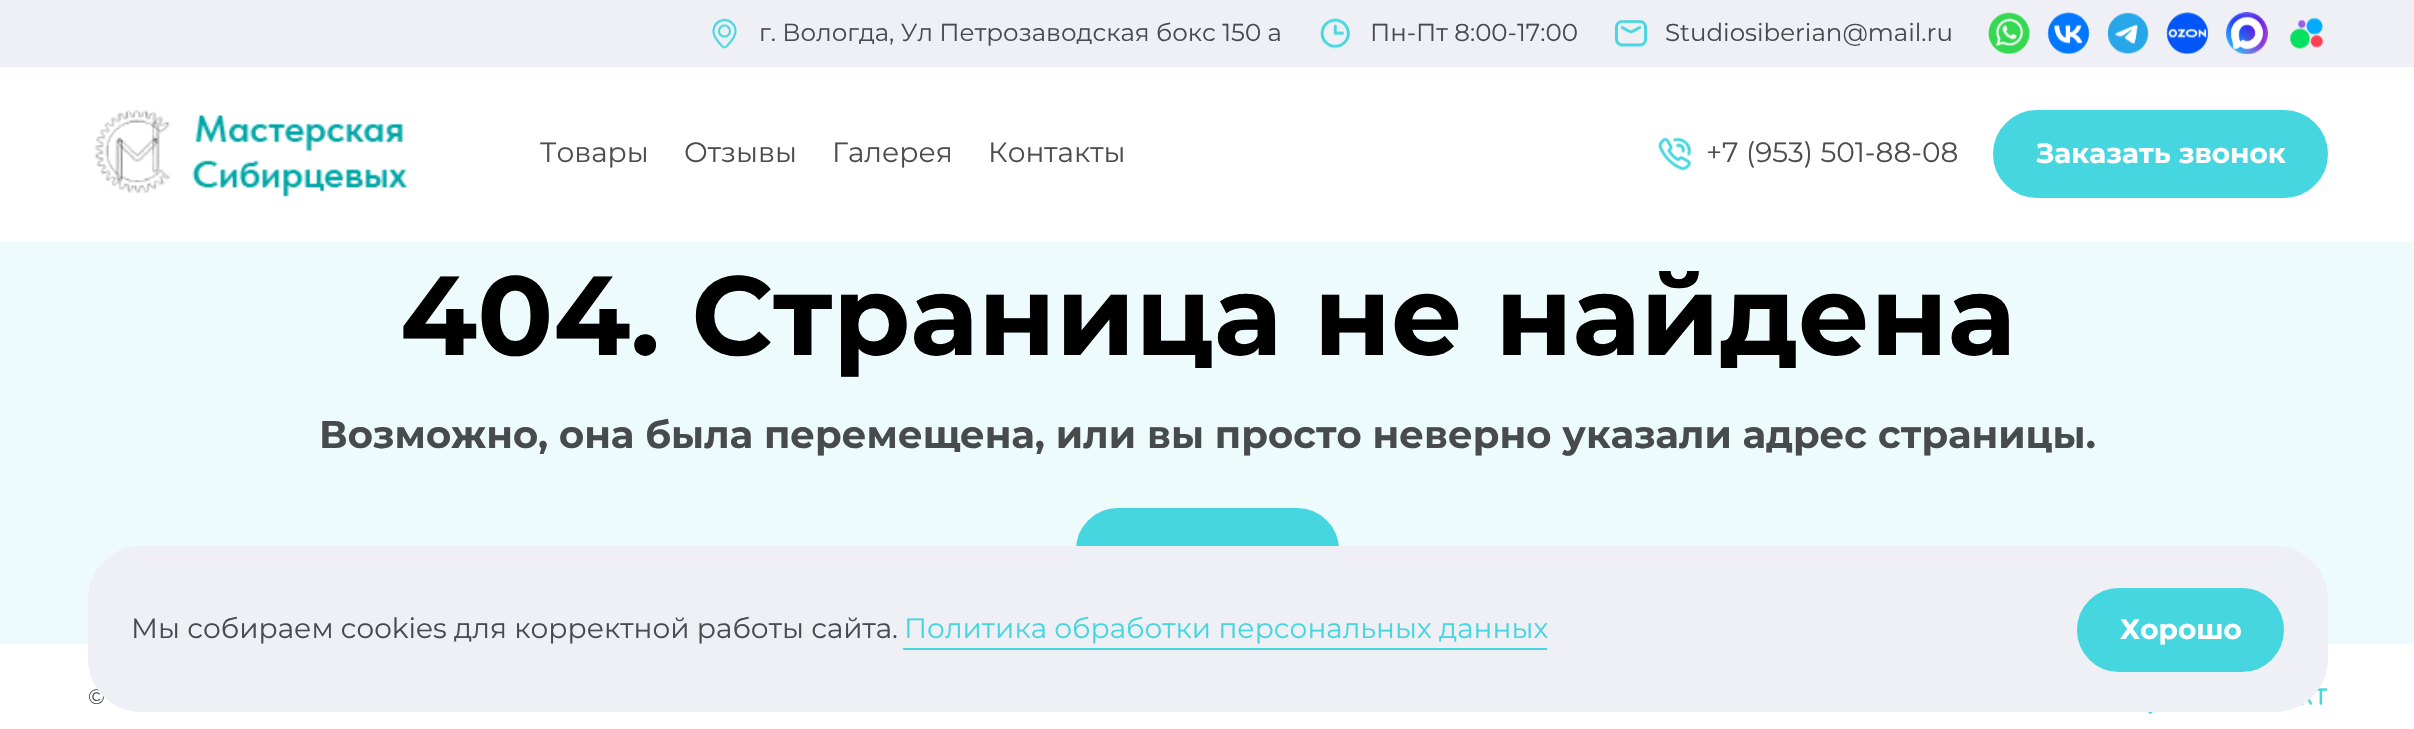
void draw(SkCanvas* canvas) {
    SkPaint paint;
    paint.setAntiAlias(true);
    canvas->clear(0xFFEDFBFC);
    paint.setColor(0xFFEEF0F6);
    canvas->drawRect(SkRect::MakeXYWH(0, 0, 2414, 67), paint);
    canvas->drawImageRect(SkImages::DeferredFromEncodedData(SkData::MakeFromFileName("img1.png")), SkRect::MakeXYWH(712, 18, 25, 31), SkSamplingOptions());
    SkFont font1(fontMgr->matchFamilyStyle("Montserrat", SkFontStyle::Normal()), 24.5f);
    font1.setSubpixel(true);
    paint.setColor(0xFF474B4C);
    canvas->drawString("г. Вологда, Ул Петрозаводская бокс 150 а", 759, 41, font1, paint);
    canvas->drawImageRect(SkImages::DeferredFromEncodedData(SkData::MakeFromFileName("img2.png")), SkRect::MakeXYWH(1320, 18, 30, 31), SkSamplingOptions());
    canvas->drawString("Пн-Пт 8:00-17:00", 1370, 41, font1, paint);
    canvas->drawImageRect(SkImages::DeferredFromEncodedData(SkData::MakeFromFileName("img3.png")), SkRect::MakeXYWH(1614, 20, 34, 28), SkSamplingOptions());
    canvas->drawString("Studiosiberian@mail.ru", 1665, 41, font1, paint);
    canvas->drawImageRect(SkImages::DeferredFromEncodedData(SkData::MakeFromFileName("img4.png")), SkRect::MakeXYWH(1988, 12, 42, 42), SkSamplingOptions());
    canvas->drawImageRect(SkImages::DeferredFromEncodedData(SkData::MakeFromFileName("img5.png")), SkRect::MakeXYWH(2047, 12, 43, 42), SkSamplingOptions());
    canvas->drawImageRect(SkImages::DeferredFromEncodedData(SkData::MakeFromFileName("img6.png")), SkRect::MakeXYWH(2107, 12, 42, 42), SkSamplingOptions());
    canvas->drawImageRect(SkImages::DeferredFromEncodedData(SkData::MakeFromFileName("img7.png")), SkRect::MakeXYWH(2166, 12, 43, 42), SkSamplingOptions());
    canvas->drawImageRect(SkImages::DeferredFromEncodedData(SkData::MakeFromFileName("img8.png")), SkRect::MakeXYWH(2226, 12, 42, 42), SkSamplingOptions());
    canvas->drawImageRect(SkImages::DeferredFromEncodedData(SkData::MakeFromFileName("img9.png")), SkRect::MakeXYWH(2289, 17, 35, 33), SkSamplingOptions());
    paint.setColor(0xFFFFFFFF);
    canvas->drawRect(SkRect::MakeXYWH(0, 67, 2414, 175), paint);
    canvas->drawImageRect(SkImages::DeferredFromEncodedData(SkData::MakeFromFileName("img10.png")), SkRect::MakeXYWH(94, 110, 314, 87), SkSamplingOptions());
    SkFont font2(fontMgr->matchFamilyStyle("Montserrat", SkFontStyle::Normal()), 28);
    font2.setSubpixel(true);
    paint.setColor(0xFF4D4D4D);
    canvas->drawString("Товары", 540, 162, font2, paint);
    canvas->drawString("Отзывы", 684, 162, font2, paint);
    canvas->drawString("Галерея", 832, 162, font2, paint);
    canvas->drawString("Контакты", 988, 162, font2, paint);
    canvas->drawImageRect(SkImages::DeferredFromEncodedData(SkData::MakeFromFileName("img11.png")), SkRect::MakeXYWH(1658, 137, 34, 34), SkSamplingOptions());
    canvas->drawString("+7 (953) 501-88-08", 1706, 162, font2, paint);
    paint.setColor(0xFF45D6E0);
    canvas->drawRoundRect(SkRect::MakeXYWH(1994, 111, 333, 86), 43, 43, paint);
    paint.setStyle(SkPaint::kStroke_Style);
    paint.setStrokeWidth(2);
    canvas->drawRoundRect(SkRect::MakeXYWH(1994, 111, 333, 86), 43, 43, paint);
    SkFont font3(fontMgr->matchFamilyStyle("Montserrat", SkFontStyle::Bold()), 28);
    font3.setSubpixel(true);
    paint.setStyle(SkPaint::kFill_Style);
    paint.setColor(0xFFFFFFFF);
    canvas->drawString("Заказать звонок", 2036, 163, font3, paint);
    SkFont font4(fontMgr->matchFamilyStyle("Montserrat", SkFontStyle::Bold()), 112);
    font4.setSubpixel(true);
    paint.setColor(0xFF000000);
    canvas->drawString("404. Страница не найдена", 400, 355, font4, paint);
    SkFont font5(fontMgr->matchFamilyStyle("Montserrat", SkFontStyle::Bold()), 38.5f);
    font5.setSubpixel(true);
    paint.setColor(0xFF474B4C);
    canvas->drawString("Возможно, она была перемещена, или вы просто неверно указали адрес страницы.", 319, 448, font5, paint);
    paint.setColor(0xFF45D6E0);
    canvas->drawRoundRect(SkRect::MakeXYWH(1077, 509, 261, 82), 41, 41, paint);
    paint.setStyle(SkPaint::kStroke_Style);
    canvas->drawRoundRect(SkRect::MakeXYWH(1077, 509, 261, 82), 41, 41, paint);
    paint.setStyle(SkPaint::kFill_Style);
    paint.setColor(0xFFFFFFFF);
    canvas->drawRect(SkRect::MakeXYWH(0, 644, 2414, 85), paint);
    SkFont font6(fontMgr->matchFamilyStyle("Montserrat", SkFontStyle::Normal()), 21);
    font6.setSubpixel(true);
    paint.setColor(0xFF4D4D4D);
    canvas->drawString("©", 88, 704, font6, paint);
    canvas->drawImageRect(SkImages::DeferredFromEncodedData(SkData::MakeFromFileName("img12.png")), SkRect::MakeXYWH(2148, 688, 180, 26), SkSamplingOptions());
    paint.setColor(0xFFEEF0F6);
    canvas->drawRoundRect(SkRect::MakeXYWH(88, 546, 2240, 166), 53, 53, paint);
    paint.setColor(0xFF474B4C);
    canvas->drawString("Мы собираем cookies для корректной работы сайта.", 131, 638, font2, paint);
    paint.setColor(0xFF45D6E0);
    canvas->drawString("Политика обработки персональных данных", 904, 638, font2, paint);
    canvas->drawRect(SkRect::MakeXYWH(903, 648, 644, 2), paint);
    canvas->drawRoundRect(SkRect::MakeXYWH(2078, 589, 205, 82), 41, 41, paint);
    paint.setStyle(SkPaint::kStroke_Style);
    canvas->drawRoundRect(SkRect::MakeXYWH(2078, 589, 205, 82), 41, 41, paint);
    paint.setStyle(SkPaint::kFill_Style);
    paint.setColor(0xFFFFFFFF);
    canvas->drawString("Хорошо", 2120, 639, font3, paint);
}
